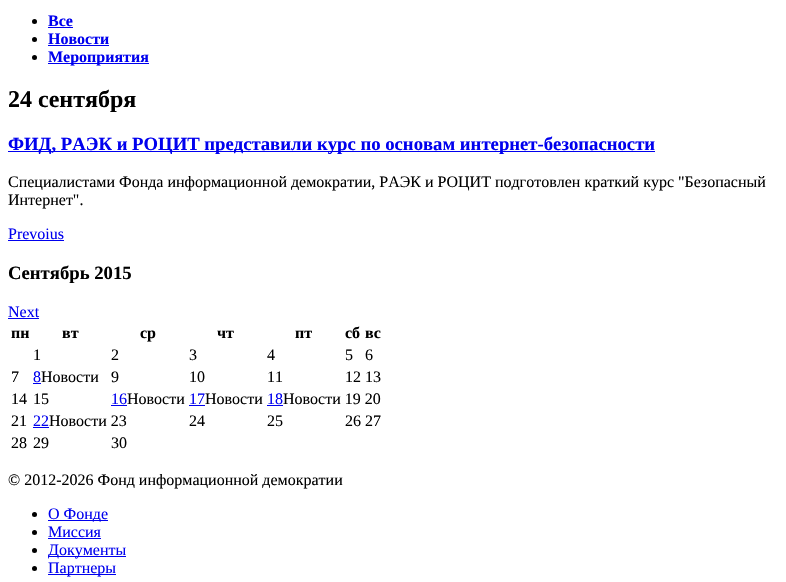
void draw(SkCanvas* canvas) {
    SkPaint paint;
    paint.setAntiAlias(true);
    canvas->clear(0xFFFFFFFF);
    paint.setColor(0xFF000000);
    canvas->drawCircle(34.5f, 21.5f, 2.5f, paint);
    SkFont font1(fontMgr->matchFamilyStyle("Liberation Serif", SkFontStyle::Bold()), 16);
    font1.setSubpixel(true);
    paint.setColor(0xFF0000EE);
    canvas->drawString("Все", 48, 26, font1, paint);
    canvas->drawRect(SkRect::MakeXYWH(48, 27, 25, 1), paint);
    paint.setColor(0xFF000000);
    canvas->drawCircle(34.5f, 39.5f, 2.5f, paint);
    paint.setColor(0xFF0000EE);
    canvas->drawString("Новости", 48, 44, font1, paint);
    canvas->drawRect(SkRect::MakeXYWH(48, 45, 61, 1), paint);
    paint.setColor(0xFF000000);
    canvas->drawCircle(34.5f, 57.5f, 2.5f, paint);
    paint.setColor(0xFF0000EE);
    canvas->drawRect(SkRect::MakeXYWH(48, 63, 101, 1), paint);
    canvas->drawString("Мероприятия", 48, 62, font1, paint);
    SkFont font2(fontMgr->matchFamilyStyle("Liberation Serif", SkFontStyle::Bold()), 24);
    font2.setSubpixel(true);
    paint.setColor(0xFF000000);
    canvas->drawString("24 сентября", 8, 107, font2, paint);
    paint.setColor(0xFF0000EE);
    canvas->drawRect(SkRect::MakeXYWH(8, 151, 647, 1), paint);
    SkFont font3(fontMgr->matchFamilyStyle("Liberation Serif", SkFontStyle::Bold()), 18.7f);
    font3.setSubpixel(true);
    canvas->drawString("ФИД, РАЭК и РОЦИТ представили курс по основам интернет-безопасности", 8, 150, font3, paint);
    SkFont font4(fontMgr->matchFamilyStyle("Liberation Serif", SkFontStyle::Normal()), 16);
    font4.setSubpixel(true);
    paint.setColor(0xFF000000);
    canvas->drawString("Специалистами Фонда информационной демократии, РАЭК и РОЦИТ подготовлен краткий курс \"Безопасный", 8, 187, font4, paint);
    canvas->drawString("Интернет\".", 8, 205, font4, paint);
    paint.setColor(0xFF0000EE);
    canvas->drawString("Prevoius", 8, 239, font4, paint);
    canvas->drawRect(SkRect::MakeXYWH(8, 240, 56, 1), paint);
    paint.setColor(0xFF000000);
    canvas->drawString("Сентябрь 2015", 8, 279, font3, paint);
    paint.setColor(0xFF0000EE);
    canvas->drawString("Next", 8, 317, font4, paint);
    canvas->drawRect(SkRect::MakeXYWH(8, 318, 31, 1), paint);
    paint.setColor(0xFF000000);
    canvas->drawString("пн", 11, 338, font1, paint);
    canvas->drawString("вт", 62, 338, font1, paint);
    canvas->drawString("ср", 140, 338, font1, paint);
    canvas->drawString("чт", 217, 338, font1, paint);
    canvas->drawString("пт", 295, 338, font1, paint);
    canvas->drawString("сб", 345, 338, font1, paint);
    canvas->drawString("вс", 365, 338, font1, paint);
    canvas->drawString("1", 33, 360, font4, paint);
    canvas->drawString("2", 111, 360, font4, paint);
    canvas->drawString("3", 189, 360, font4, paint);
    canvas->drawString("4", 267, 360, font4, paint);
    canvas->drawString("5", 345, 360, font4, paint);
    canvas->drawString("6", 365, 360, font4, paint);
    canvas->drawString("7", 11, 382, font4, paint);
    paint.setColor(0xFF0000EE);
    canvas->drawString("8", 33, 382, font4, paint);
    canvas->drawRect(SkRect::MakeXYWH(33, 383, 8, 1), paint);
    paint.setColor(0xFF000000);
    canvas->drawString("Новости", 41, 382, font4, paint);
    canvas->drawString("9", 111, 382, font4, paint);
    canvas->drawString("10", 189, 382, font4, paint);
    canvas->drawString("11", 267, 382, font4, paint);
    canvas->drawString("12 13", 345, 382, font4, paint);
    canvas->drawString("14", 11, 404, font4, paint);
    canvas->drawString("15", 33, 404, font4, paint);
    paint.setColor(0xFF0000EE);
    canvas->drawString("16", 111, 404, font4, paint);
    canvas->drawRect(SkRect::MakeXYWH(111, 405, 16, 1), paint);
    paint.setColor(0xFF000000);
    canvas->drawString("Новости", 127, 404, font4, paint);
    paint.setColor(0xFF0000EE);
    canvas->drawString("17", 189, 404, font4, paint);
    canvas->drawRect(SkRect::MakeXYWH(189, 405, 16, 1), paint);
    paint.setColor(0xFF000000);
    canvas->drawString("Новости", 205, 404, font4, paint);
    paint.setColor(0xFF0000EE);
    canvas->drawString("18", 267, 404, font4, paint);
    canvas->drawRect(SkRect::MakeXYWH(267, 405, 16, 1), paint);
    paint.setColor(0xFF000000);
    canvas->drawString("Новости 19 20", 283, 404, font4, paint);
    canvas->drawString("21", 11, 426, font4, paint);
    paint.setColor(0xFF0000EE);
    canvas->drawString("22", 33, 426, font4, paint);
    canvas->drawRect(SkRect::MakeXYWH(33, 427, 16, 1), paint);
    paint.setColor(0xFF000000);
    canvas->drawString("Новости 23", 49, 426, font4, paint);
    canvas->drawString("24", 189, 426, font4, paint);
    canvas->drawString("25", 267, 426, font4, paint);
    canvas->drawString("26 27", 345, 426, font4, paint);
    canvas->drawString("28", 11, 448, font4, paint);
    canvas->drawString("29", 33, 448, font4, paint);
    canvas->drawString("30", 111, 448, font4, paint);
    canvas->drawString("© 2012-2026 Фонд информационной демократии", 8, 485, font4, paint);
    canvas->drawCircle(34.5f, 514.5f, 2.5f, paint);
    paint.setColor(0xFF0000EE);
    canvas->drawRect(SkRect::MakeXYWH(48, 520, 60, 1), paint);
    canvas->drawString("О Фонде", 48, 519, font4, paint);
    paint.setColor(0xFF000000);
    canvas->drawCircle(34.5f, 532.5f, 2.5f, paint);
    paint.setColor(0xFF0000EE);
    canvas->drawString("Миссия", 48, 537, font4, paint);
    canvas->drawRect(SkRect::MakeXYWH(48, 538, 53, 1), paint);
    paint.setColor(0xFF000000);
    canvas->drawCircle(34.5f, 550.5f, 2.5f, paint);
    paint.setColor(0xFF0000EE);
    canvas->drawRect(SkRect::MakeXYWH(48, 556, 78, 1), paint);
    canvas->drawString("Документы", 48, 555, font4, paint);
    paint.setColor(0xFF000000);
    canvas->drawCircle(34.5f, 568.5f, 2.5f, paint);
    paint.setColor(0xFF0000EE);
    canvas->drawRect(SkRect::MakeXYWH(48, 574, 68, 1), paint);
    canvas->drawString("Партнеры", 48, 573, font4, paint);
}
